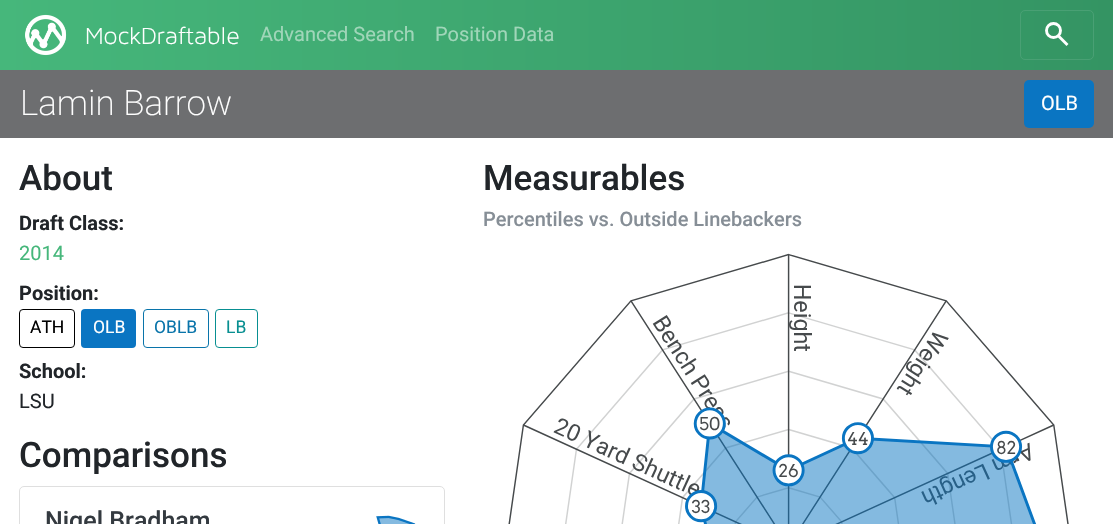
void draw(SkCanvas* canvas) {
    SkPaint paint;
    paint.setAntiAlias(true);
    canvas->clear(0xFFFFFFFF);
    {
        const SkColor colors[] = {0xFF46B77B, 0xFF349463};
        const float stops[] = {0, 1};
        const SkPoint ends[] = {{0, 35}, {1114, 35}};
        paint.setShader(SkGradientShader::MakeLinear(ends, colors, stops, 2, SkTileMode::kClamp));
        paint.setAlpha(255);
    }
    canvas->drawRect(SkRect::MakeXYWH(0, 0, 1113, 70), paint);
    canvas->drawImageRect(SkImages::DeferredFromEncodedData(SkData::MakeFromFileName("img1.png")), SkRect::MakeXYWH(25, 14, 42, 42), SkSamplingOptions());
    SkFont font1(fontMgr->matchFamilyStyle("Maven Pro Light", SkFontStyle(300, SkFontStyle::kNormal_Width, SkFontStyle::kUpright_Slant)), 25);
    font1.setSubpixel(true);
    paint.setShader(nullptr);
    paint.setColor(0xFFFFFFFF);
    canvas->drawString("MockDraftable", 85, 44, font1, paint);
    SkFont font2(fontMgr->matchFamilyStyle("Roboto", SkFontStyle::Normal()), 20);
    font2.setSubpixel(true);
    paint.setColor(0xFFA0D6B9);
    canvas->drawString("Advanced Search", 260, 41, font2, paint);
    canvas->drawString("Position Data", 435, 41, font2, paint);
    paint.setStyle(SkPaint::kStroke_Style);
    paint.setStrokeWidth(1);
    paint.setColor(0xFF49A074);
    canvas->drawRoundRect(SkRect::MakeXYWH(1020.5f, 10.5f, 73, 49), 4.5f, 4.5f, paint);
    paint.setStrokeWidth(2.9f);
    paint.setColor(0xFFFFFFFF);
    canvas->drawCircle(1053.5f, 30.5f, 7, paint);
    canvas->drawPath(SkPathBuilder().moveTo(1058, 35.5f).lineTo(1067.5f, 45).detach(), paint);
    paint.setStyle(SkPaint::kFill_Style);
    paint.setColor(0xFF6D6E70);
    canvas->drawRect(SkRect::MakeXYWH(0, 70, 1113, 68), paint);
    SkFont font3(fontMgr->matchFamilyStyle("Roboto", SkFontStyle(200, SkFontStyle::kNormal_Width, SkFontStyle::kUpright_Slant)), 35);
    font3.setSubpixel(true);
    paint.setColor(0xFFFFFFFF);
    canvas->drawString("Lamin Barrow", 20, 115, font3, paint);
    paint.setColor(0xFF0A75C2);
    canvas->drawRoundRect(SkRect::MakeXYWH(1024, 80, 70, 48), 5, 5, paint);
    paint.setColor(0xFFFFFFFF);
    canvas->drawString("OLB", 1041, 110, font2, paint);
    SkFont font4(fontMgr->matchFamilyStyle("Roboto", SkFontStyle(500, SkFontStyle::kNormal_Width, SkFontStyle::kUpright_Slant)), 35);
    font4.setSubpixel(true);
    paint.setColor(0xFF212529);
    canvas->drawString("About", 19, 190, font4, paint);
    SkFont font5(fontMgr->matchFamilyStyle("Roboto", SkFontStyle::Bold()), 20);
    font5.setSubpixel(true);
    canvas->drawString("Draft Class:", 19, 230, font5, paint);
    paint.setColor(0xFF46B77B);
    canvas->drawString("2014", 19, 260, font2, paint);
    paint.setColor(0xFF212529);
    canvas->drawString("Position:", 19, 300, font5, paint);
    paint.setStyle(SkPaint::kStroke_Style);
    paint.setStrokeWidth(1);
    paint.setColor(0xFF000000);
    canvas->drawRoundRect(SkRect::MakeXYWH(19.5f, 309.5f, 55, 38), 3.5f, 3.5f, paint);
    SkFont font6(fontMgr->matchFamilyStyle("Roboto", SkFontStyle::Normal()), 17.5f);
    font6.setSubpixel(true);
    paint.setStyle(SkPaint::kFill_Style);
    canvas->drawString("ATH", 30, 333, font6, paint);
    paint.setColor(0xFF0A75C2);
    canvas->drawRoundRect(SkRect::MakeXYWH(81, 309, 55, 39), 4, 4, paint);
    paint.setColor(0xFFFFFFFF);
    canvas->drawString("OLB", 93, 333, font6, paint);
    paint.setStyle(SkPaint::kStroke_Style);
    paint.setColor(0xFF0974AA);
    canvas->drawRoundRect(SkRect::MakeXYWH(143.5f, 309.5f, 65, 38), 3.5f, 3.5f, paint);
    paint.setStyle(SkPaint::kFill_Style);
    canvas->drawString("OBLB", 154, 333, font6, paint);
    paint.setStyle(SkPaint::kStroke_Style);
    paint.setColor(0xFF088F91);
    canvas->drawRoundRect(SkRect::MakeXYWH(215.5f, 309.5f, 42, 38), 3.5f, 3.5f, paint);
    paint.setStyle(SkPaint::kFill_Style);
    canvas->drawString("LB", 226, 333, font6, paint);
    paint.setColor(0xFF212529);
    canvas->drawString("School:", 19, 378, font5, paint);
    canvas->drawString("LSU", 19, 408, font2, paint);
    canvas->drawString("Comparisons", 19, 467, font4, paint);
    paint.setStyle(SkPaint::kStroke_Style);
    paint.setColor(0xFFDFDFDF);
    canvas->drawPath(SkPathBuilder().moveTo(24, 486.5f).lineTo(440, 486.5f).cubicTo(442.5f, 486.5f, 444.5f, 488.5f, 444.5f, 491).lineTo(444.5f, 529.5f).lineTo(19.5f, 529.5f).lineTo(19.5f, 491).cubicTo(19.5f, 488.5f, 21.5f, 486.5f, 24, 486.5f).close().detach(), paint);
    SkFont font7(fontMgr->matchFamilyStyle("Roboto", SkFontStyle(500, SkFontStyle::kNormal_Width, SkFontStyle::kUpright_Slant)), 25);
    font7.setSubpixel(true);
    paint.setStyle(SkPaint::kFill_Style);
    paint.setColor(0xFF343A40);
    canvas->drawString("Nigel Bradham", 45, 529, font7, paint);
    canvas->drawImageRect(SkImages::DeferredFromEncodedData(SkData::MakeFromFileName("img2.png")), SkRect::MakeXYWH(376, 515, 40, 9), SkSamplingOptions());
    paint.setColor(0xFF212529);
    canvas->drawString("Measurables", 483, 190, font4, paint);
    SkFont font8(fontMgr->matchFamilyStyle("Roboto", SkFontStyle(500, SkFontStyle::kNormal_Width, SkFontStyle::kUpright_Slant)), 20);
    font8.setSubpixel(true);
    paint.setColor(0xFF868E96);
    canvas->drawString("Percentiles vs. Outside Linebackers", 483, 226, font8, paint);
    canvas->drawImageRect(SkImages::DeferredFromEncodedData(SkData::MakeFromFileName("img3.png")), SkRect::MakeXYWH(508, 253, 561, 271), SkSamplingOptions());
}
